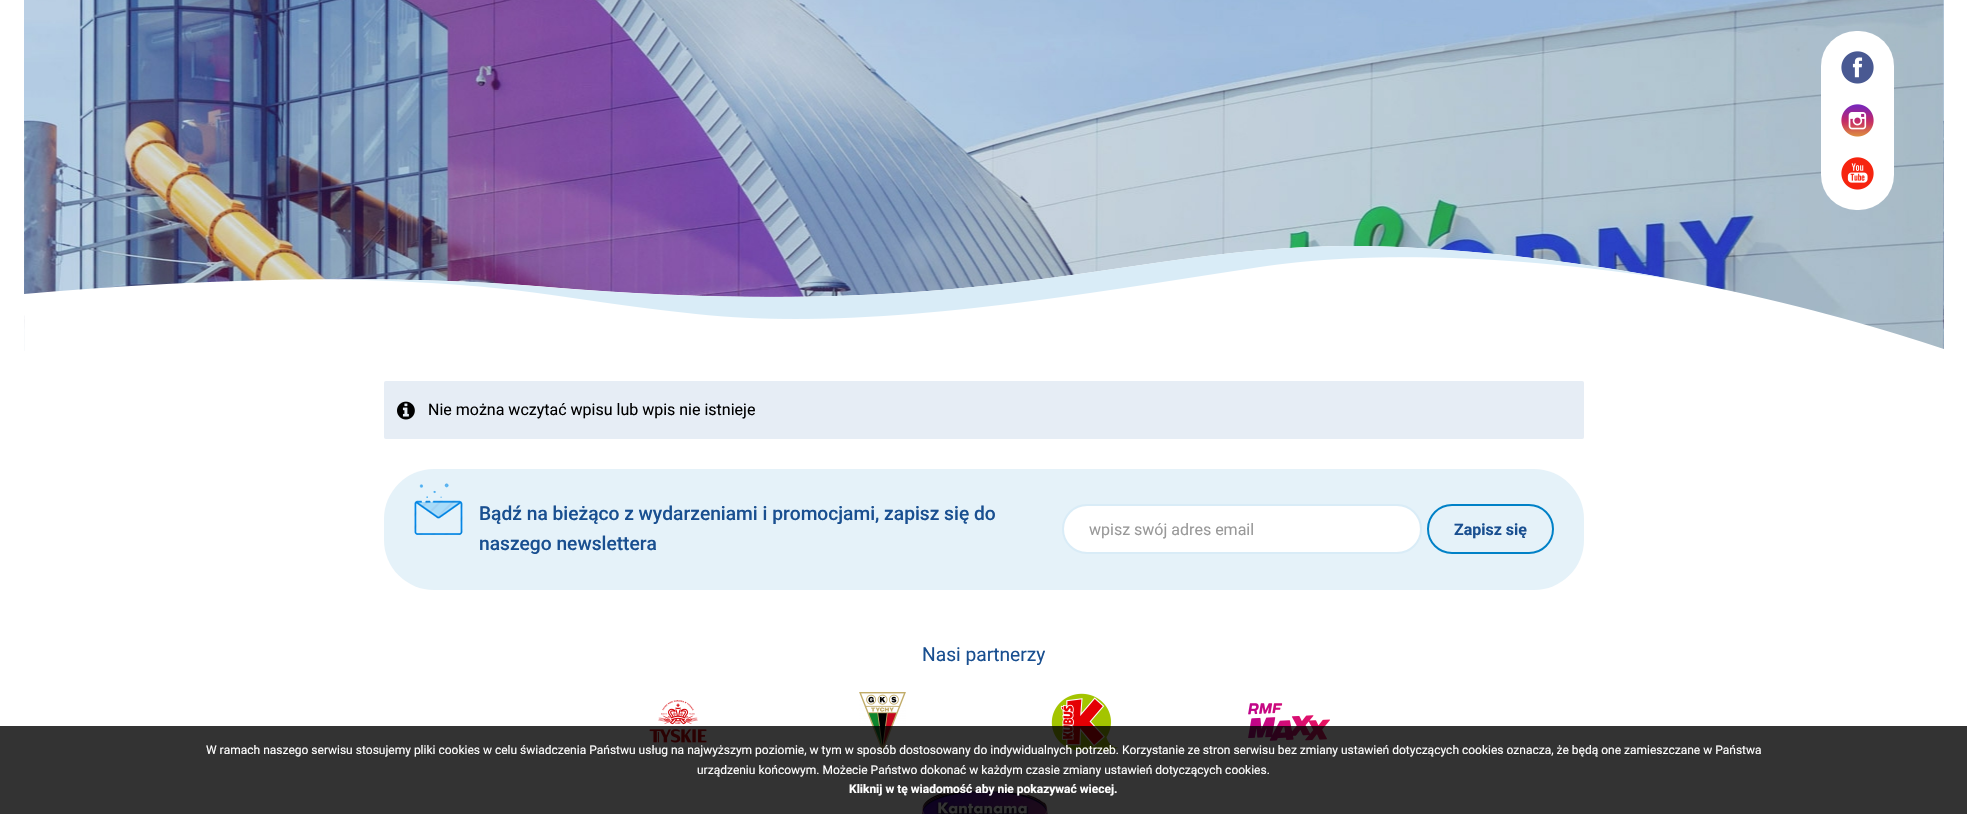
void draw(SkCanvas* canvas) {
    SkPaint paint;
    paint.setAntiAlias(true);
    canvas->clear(0xFFFFFFFF);
    canvas->drawImageRect(SkImages::DeferredFromEncodedData(SkData::MakeFromFileName("img1.png")), SkRect::MakeXYWH(24, 0, 1920, 351), SkSamplingOptions());
    canvas->drawImageRect(SkImages::DeferredFromEncodedData(SkData::MakeFromFileName("img2.png")), SkRect::MakeXYWH(24, 246, 1920, 105), SkSamplingOptions());
    paint.setColor(0xFFFFFFFF);
    canvas->drawRoundRect(SkRect::MakeXYWH(1821, 31, 73, 179), 35, 35, paint);
    canvas->drawImageRect(SkImages::DeferredFromEncodedData(SkData::MakeFromFileName("img3.png")), SkRect::MakeXYWH(1841, 51, 33, 33), SkSamplingOptions());
    canvas->drawImageRect(SkImages::DeferredFromEncodedData(SkData::MakeFromFileName("img4.png")), SkRect::MakeXYWH(1841, 104, 33, 33), SkSamplingOptions());
    canvas->drawImageRect(SkImages::DeferredFromEncodedData(SkData::MakeFromFileName("img5.png")), SkRect::MakeXYWH(1841, 157, 33, 33), SkSamplingOptions());
    paint.setColor(0xFFE6EDF5);
    canvas->drawRoundRect(SkRect::MakeXYWH(384, 381, 1200, 58), 2, 2, paint);
    canvas->drawImageRect(SkImages::DeferredFromEncodedData(SkData::MakeFromFileName("img6.png")), SkRect::MakeXYWH(397, 401, 18, 19), SkSamplingOptions());
    SkFont font1(fontMgr->matchFamilyStyle("Roboto", SkFontStyle::Normal()), 16);
    font1.setSubpixel(true);
    paint.setColor(0xFF000000);
    canvas->drawString("Nie można wczytać wpisu lub wpis nie istnieje", 428, 415, font1, paint);
    paint.setColor(0xFFE5F2F9);
    canvas->drawRoundRect(SkRect::MakeXYWH(384, 469, 1200, 121), 50, 50, paint);
    canvas->drawImageRect(SkImages::DeferredFromEncodedData(SkData::MakeFromFileName("img7.png")), SkRect::MakeXYWH(414, 483, 49, 52), SkSamplingOptions());
    SkFont font2(fontMgr->matchFamilyStyle("Roboto", SkFontStyle(500, SkFontStyle::kNormal_Width, SkFontStyle::kUpright_Slant)), 19.2f);
    font2.setSubpixel(true);
    paint.setColor(0xFF194F90);
    canvas->drawString("Bądź na bieżąco z wydarzeniami i promocjami, zapisz się do", 479, 520, font2, paint);
    canvas->drawString("naszego newslettera", 479, 550, font2, paint);
    paint.setColor(0xFFFFFFFF);
    canvas->drawRoundRect(SkRect::MakeXYWH(1063, 505, 358, 48), 24, 24, paint);
    paint.setStyle(SkPaint::kStroke_Style);
    paint.setStrokeWidth(2);
    paint.setColor(0xFFD9ECF7);
    canvas->drawRoundRect(SkRect::MakeXYWH(1063, 505, 358, 48), 24, 24, paint);
    paint.setStyle(SkPaint::kFill_Style);
    paint.setColor(0xFF999999);
    canvas->drawString("wpisz swój adres email", 1089, 535, font1, paint);
    paint.setStyle(SkPaint::kStroke_Style);
    paint.setColor(0xFF0081C7);
    canvas->drawRoundRect(SkRect::MakeXYWH(1428, 505, 125, 48), 24, 24, paint);
    SkFont font3(fontMgr->matchFamilyStyle("Roboto", SkFontStyle::Bold()), 16);
    font3.setSubpixel(true);
    paint.setStyle(SkPaint::kFill_Style);
    paint.setColor(0xFF194F90);
    canvas->drawString("Zapisz się", 1454, 535, font3, paint);
    SkFont font4(fontMgr->matchFamilyStyle("Roboto", SkFontStyle::Normal()), 19.2f);
    font4.setSubpixel(true);
    canvas->drawString("Nasi partnerzy", 922, 661, font4, paint);
    canvas->drawImageRect(SkImages::DeferredFromEncodedData(SkData::MakeFromFileName("img8.png")), SkRect::MakeXYWH(649, 700, 58, 43), SkSamplingOptions());
    canvas->drawImageRect(SkImages::DeferredFromEncodedData(SkData::MakeFromFileName("img9.png")), SkRect::MakeXYWH(859, 692, 47, 60), SkSamplingOptions());
    canvas->drawImageRect(SkImages::DeferredFromEncodedData(SkData::MakeFromFileName("img10.png")), SkRect::MakeXYWH(1051, 693, 68, 59), SkSamplingOptions());
    canvas->drawImageRect(SkImages::DeferredFromEncodedData(SkData::MakeFromFileName("img11.png")), SkRect::MakeXYWH(1248, 703, 82, 38), SkSamplingOptions());
    canvas->drawImageRect(SkImages::DeferredFromEncodedData(SkData::MakeFromFileName("img12.png")), SkRect::MakeXYWH(922, 786, 126, 28), SkSamplingOptions());
    paint.setColor(0xCC000000);
    canvas->drawRect(SkRect::MakeXYWH(0, 726, 1967, 88), paint);
    SkFont font5(fontMgr->matchFamilyStyle("Roboto", SkFontStyle::Normal()), 12);
    font5.setSubpixel(true);
    paint.setColor(0xFFFFFFFF);
    canvas->drawString("W ramach naszego serwisu stosujemy pliki cookies w celu świadczenia Państwu usług na najwyższym poziomie, w tym w sposób dostosowany do indywidualnych potrzeb. Korzystanie ze stron serwisu bez zmiany ustawień dotyczących cookies oznacza, że będą one zamieszczane w Państwa", 206, 754, font5, paint);
    canvas->drawString("urządzeniu końcowym. Możecie Państwo dokonać w każdym czasie zmiany ustawień dotyczących cookies.", 697, 774, font5, paint);
    SkFont font6(fontMgr->matchFamilyStyle("Roboto", SkFontStyle::Bold()), 12);
    font6.setSubpixel(true);
    canvas->drawString("Kliknij w tę wiadomość aby nie pokazywać wiecej.", 849, 793, font6, paint);
}
